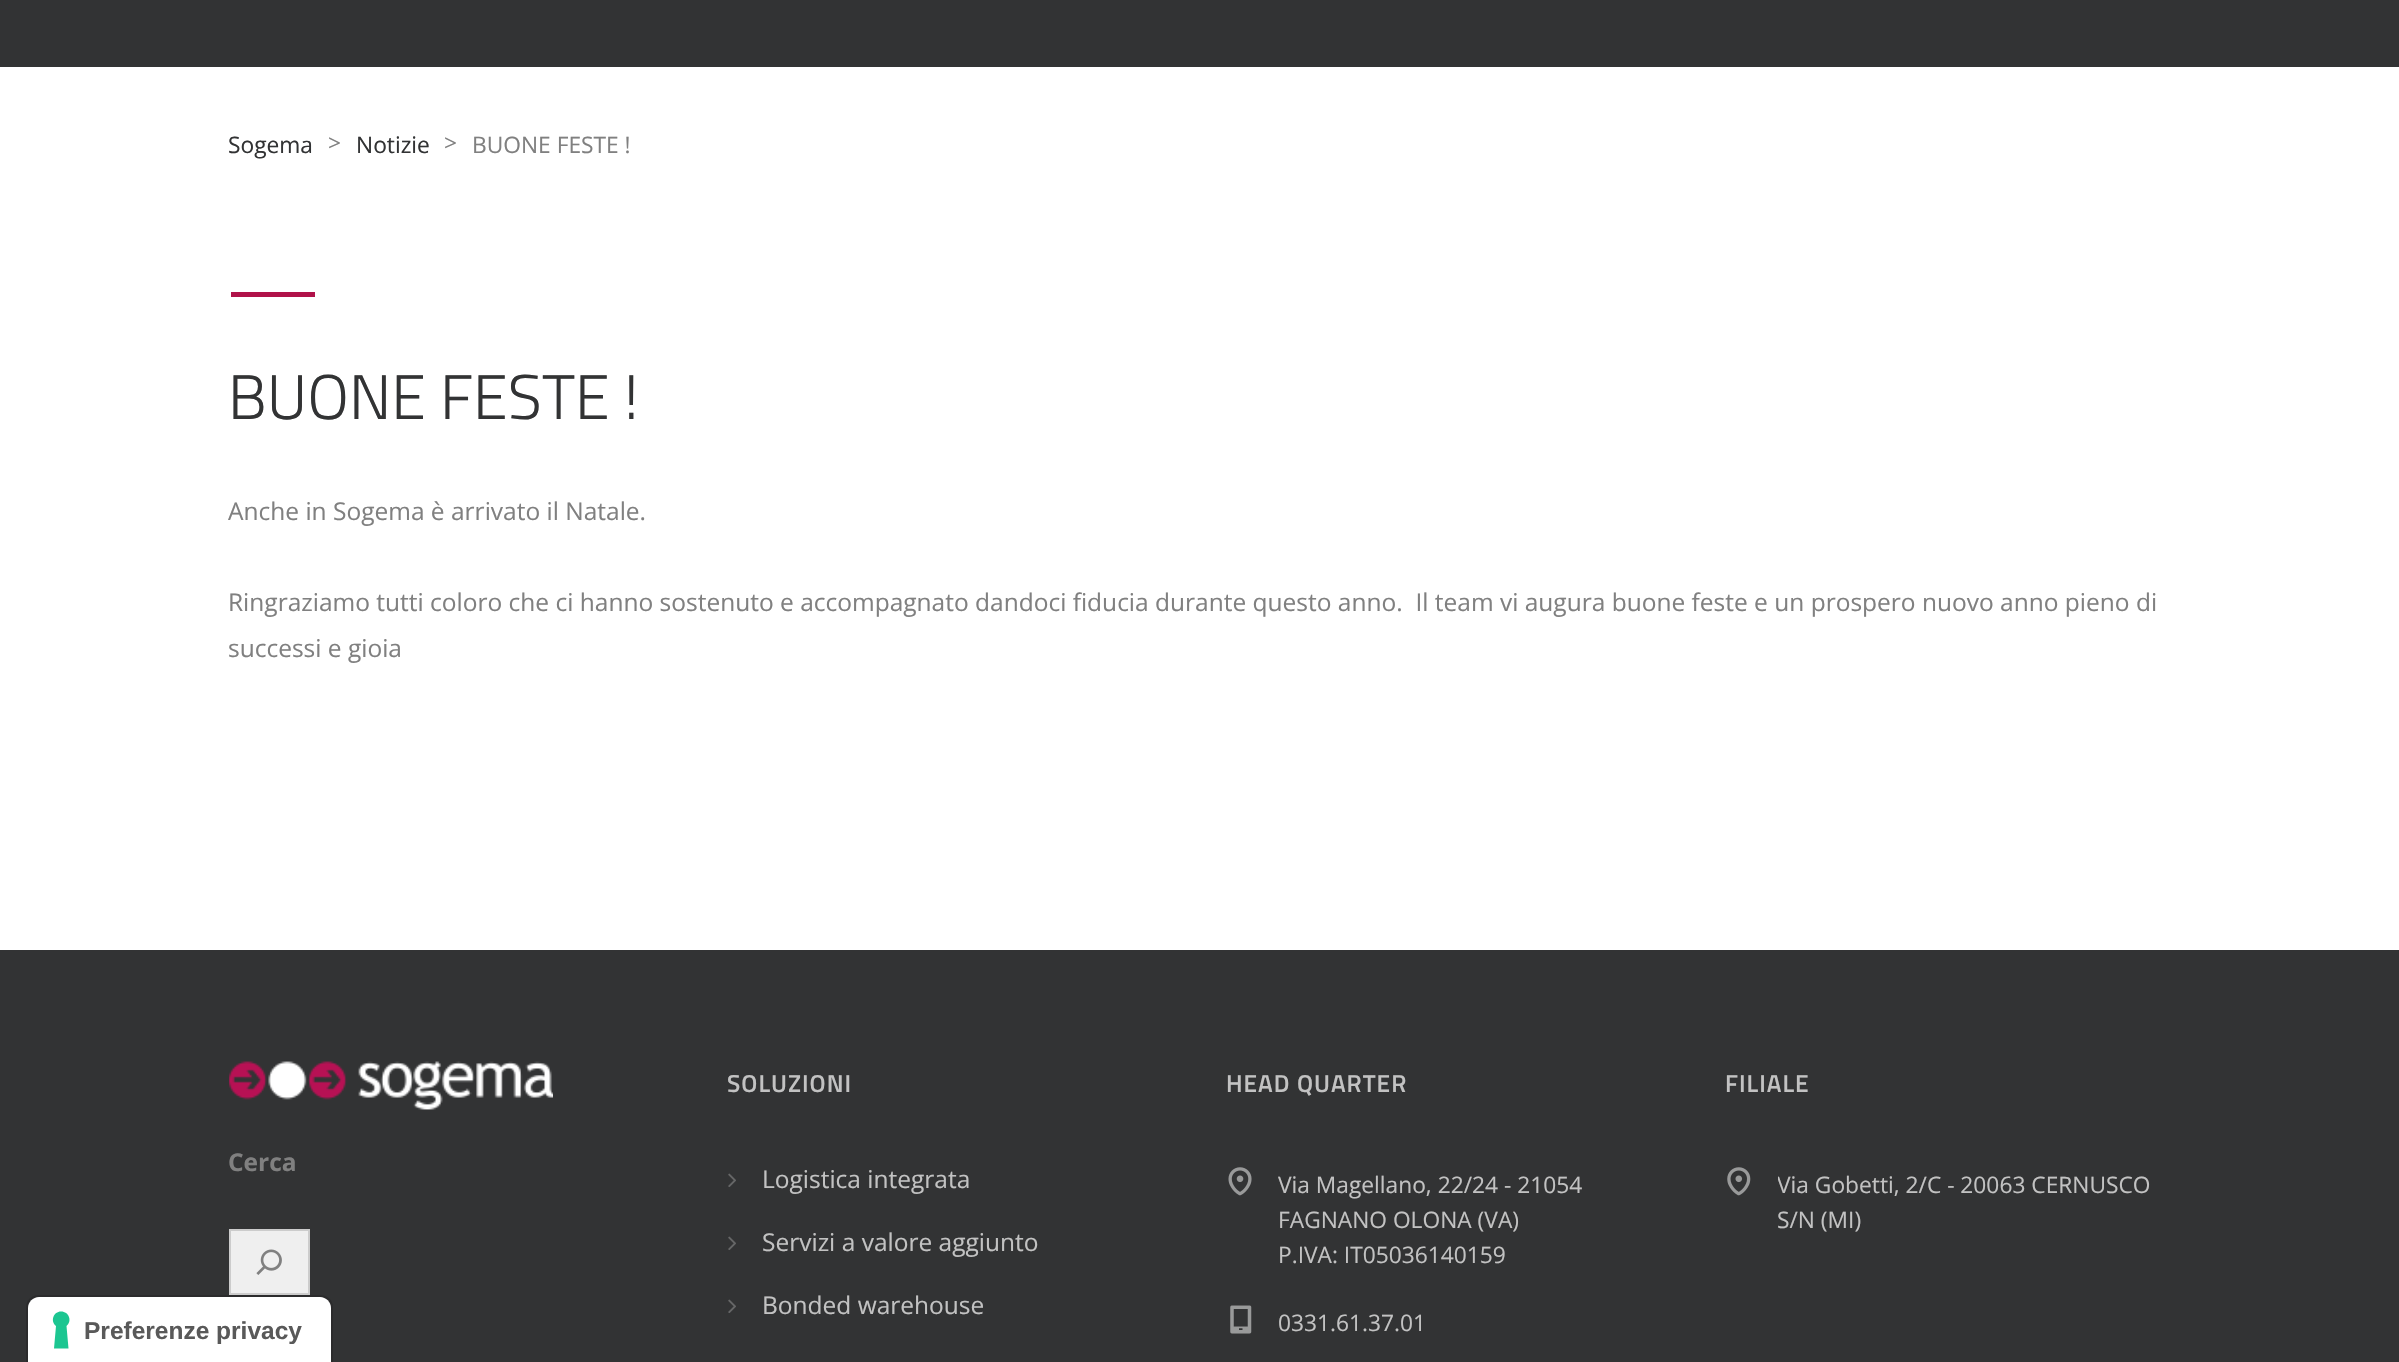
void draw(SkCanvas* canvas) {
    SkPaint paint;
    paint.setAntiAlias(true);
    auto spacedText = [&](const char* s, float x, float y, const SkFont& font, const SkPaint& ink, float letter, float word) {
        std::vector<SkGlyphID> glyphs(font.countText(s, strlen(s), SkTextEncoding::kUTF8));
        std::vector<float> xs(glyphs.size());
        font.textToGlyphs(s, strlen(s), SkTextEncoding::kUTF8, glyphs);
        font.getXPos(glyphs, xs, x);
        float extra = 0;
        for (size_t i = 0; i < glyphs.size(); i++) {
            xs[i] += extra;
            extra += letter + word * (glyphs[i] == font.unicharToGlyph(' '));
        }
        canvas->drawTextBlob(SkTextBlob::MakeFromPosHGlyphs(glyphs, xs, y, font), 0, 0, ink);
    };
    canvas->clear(0xFFFFFFFF);
    paint.setColor(0xFF323334);
    canvas->drawRect(SkRect::MakeXYWH(0, 950, 2399, 412), paint);
    paint.setStyle(SkPaint::kStroke_Style);
    paint.setStrokeWidth(2);
    paint.setColor(0xFF2B2B2C);
    canvas->drawPath(SkPathBuilder().moveTo(38, 1296).lineTo(321, 1296).cubicTo(327, 1296, 332, 1301, 332, 1307).lineTo(332, 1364).lineTo(27, 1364).lineTo(27, 1307).cubicTo(27, 1301, 32, 1296, 38, 1296).close().detach(), paint);
    paint.setStyle(SkPaint::kFill_Style);
    paint.setColor(0xFFFFFFFF);
    canvas->drawPath(SkPathBuilder().moveTo(39, 1297).lineTo(320, 1297).cubicTo(326, 1297, 331, 1302, 331, 1308).lineTo(331, 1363).lineTo(28, 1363).lineTo(28, 1308).cubicTo(28, 1302, 33, 1297, 39, 1297).close().detach(), paint);
    paint.setColor(0xFF1CC691);
    canvas->drawPath(SkPathBuilder(SkPathFillType::kEvenOdd).moveTo(61, 1311.5f).cubicTo(69, 1311.5f, 72.5f, 1321, 66.5f, 1326).lineTo(68.5f, 1348.5f).lineTo(54, 1348.5f).lineTo(56, 1326).cubicTo(50, 1321, 53.5f, 1311.5f, 61, 1311.5f).close().detach(), paint);
    SkFont font1(fontMgr->matchFamilyStyle("Liberation Sans", SkFontStyle::Bold()), 24.5f);
    font1.setSubpixel(true);
    paint.setColor(0xFF595959);
    canvas->drawString("Preferenze privacy", 84, 1339, font1, paint);
    paint.setColor(0xFF323334);
    canvas->drawRect(SkRect::MakeXYWH(0, 0, 2399, 67), paint);
    SkFont font2(fontMgr->matchFamilyStyle("Open Sans", SkFontStyle::Normal()), 22.75f);
    font2.setSubpixel(true);
    canvas->drawString("Sogema", 228, 153, font2, paint);
    paint.setColor(0xFF808080);
    canvas->drawString(">", 328, 151, font2, paint);
    paint.setColor(0xFF323334);
    canvas->drawString("Notizie", 356, 153, font2, paint);
    paint.setColor(0xFF808080);
    canvas->drawString(">", 444, 151, font2, paint);
    canvas->drawString("BUONE FESTE !", 472, 153, font2, paint);
    paint.setColor(0xFFB01249);
    canvas->drawRect(SkRect::MakeXYWH(231, 292, 84, 5), paint);
    SkFont font3(fontMgr->matchFamilyStyle("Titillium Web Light", SkFontStyle(300, SkFontStyle::kNormal_Width, SkFontStyle::kUpright_Slant)), 63);
    font3.setSubpixel(true);
    paint.setColor(0xFF323334);
    canvas->drawString("BUONE FESTE !", 228, 419, font3, paint);
    SkFont font4(fontMgr->matchFamilyStyle("Open Sans", SkFontStyle::Normal()), 24.5f);
    font4.setSubpixel(true);
    paint.setColor(0xFF808080);
    canvas->drawString("Anche in Sogema è arrivato il Natale.", 228, 520, font4, paint);
    canvas->drawString("Ringraziamo tutti coloro che ci hanno sostenuto e accompagnato dandoci fiducia durante questo anno.  Il team vi augura buone feste e un prospero nuovo anno pieno di", 228, 611, font4, paint);
    canvas->drawString("successi e gioia", 228, 657, font4, paint);
    canvas->drawImageRect(SkImages::DeferredFromEncodedData(SkData::MakeFromFileName("img1.png")), SkRect::MakeXYWH(229, 1061, 324, 49), SkSamplingOptions());
    SkFont font5(fontMgr->matchFamilyStyle("Open Sans", SkFontStyle::Bold()), 24.5f);
    font5.setSubpixel(true);
    canvas->drawString("Cerca", 228, 1171, font5, paint);
    paint.setColor(0xFFEFEFEF);
    canvas->drawRect(SkRect::MakeXYWH(230, 1230, 79, 64), paint);
    paint.setStyle(SkPaint::kStroke_Style);
    paint.setColor(0xFFCCCCCC);
    canvas->drawRect(SkRect::MakeXYWH(230, 1230, 79, 64), paint);
    canvas->drawImageRect(SkImages::DeferredFromEncodedData(SkData::MakeFromFileName("img2.png")), SkRect::MakeXYWH(256, 1249, 26, 26), SkSamplingOptions());
    SkFont font6(fontMgr->matchFamilyStyle("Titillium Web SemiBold", SkFontStyle(600, SkFontStyle::kNormal_Width, SkFontStyle::kUpright_Slant)), 24.5f);
    font6.setSubpixel(true);
    paint.setStyle(SkPaint::kFill_Style);
    paint.setColor(0xFFC2C2C2);
    spacedText("SOLUZIONI", 727, 1092, font6, paint, 1, 0);
    canvas->drawImageRect(SkImages::DeferredFromEncodedData(SkData::MakeFromFileName("img3.png")), SkRect::MakeXYWH(728, 1173, 8, 14), SkSamplingOptions());
    canvas->drawString("Logistica integrata", 762, 1188, font4, paint);
    canvas->drawImageRect(SkImages::DeferredFromEncodedData(SkData::MakeFromFileName("img3.png")), SkRect::MakeXYWH(728, 1236, 8, 14), SkSamplingOptions());
    canvas->drawString("Servizi a valore aggiunto", 762, 1251, font4, paint);
    canvas->drawImageRect(SkImages::DeferredFromEncodedData(SkData::MakeFromFileName("img3.png")), SkRect::MakeXYWH(728, 1299, 8, 14), SkSamplingOptions());
    canvas->drawString("Bonded warehouse", 762, 1314, font4, paint);
    spacedText("HEAD QUARTER", 1226, 1092, font6, paint, 1, 0);
    canvas->drawImageRect(SkImages::DeferredFromEncodedData(SkData::MakeFromFileName("img4.png")), SkRect::MakeXYWH(1228, 1167, 24, 29), SkSamplingOptions());
    canvas->drawString("Via Magellano, 22/24 - 21054", 1278, 1193, font2, paint);
    canvas->drawString("FAGNANO OLONA (VA)", 1278, 1228, font2, paint);
    canvas->drawString("P.IVA: IT05036140159", 1278, 1263, font2, paint);
    canvas->drawImageRect(SkImages::DeferredFromEncodedData(SkData::MakeFromFileName("img5.png")), SkRect::MakeXYWH(1230, 1305, 22, 29), SkSamplingOptions());
    canvas->drawString("0331.61.37.01", 1278, 1331, font2, paint);
    spacedText("FILIALE", 1725, 1092, font6, paint, 1, 0);
    canvas->drawImageRect(SkImages::DeferredFromEncodedData(SkData::MakeFromFileName("img6.png")), SkRect::MakeXYWH(1727, 1167, 24, 29), SkSamplingOptions());
    canvas->save();
    canvas->clipRect(SkRect::MakeXYWH(1778, 1167, 394, 70));
    canvas->drawString("Via Gobetti, 2/C - 20063 CERNUSCO", 1777, 1193, font2, paint);
    canvas->restore();
    canvas->drawString("S/N (MI)", 1777, 1228, font2, paint);
}
